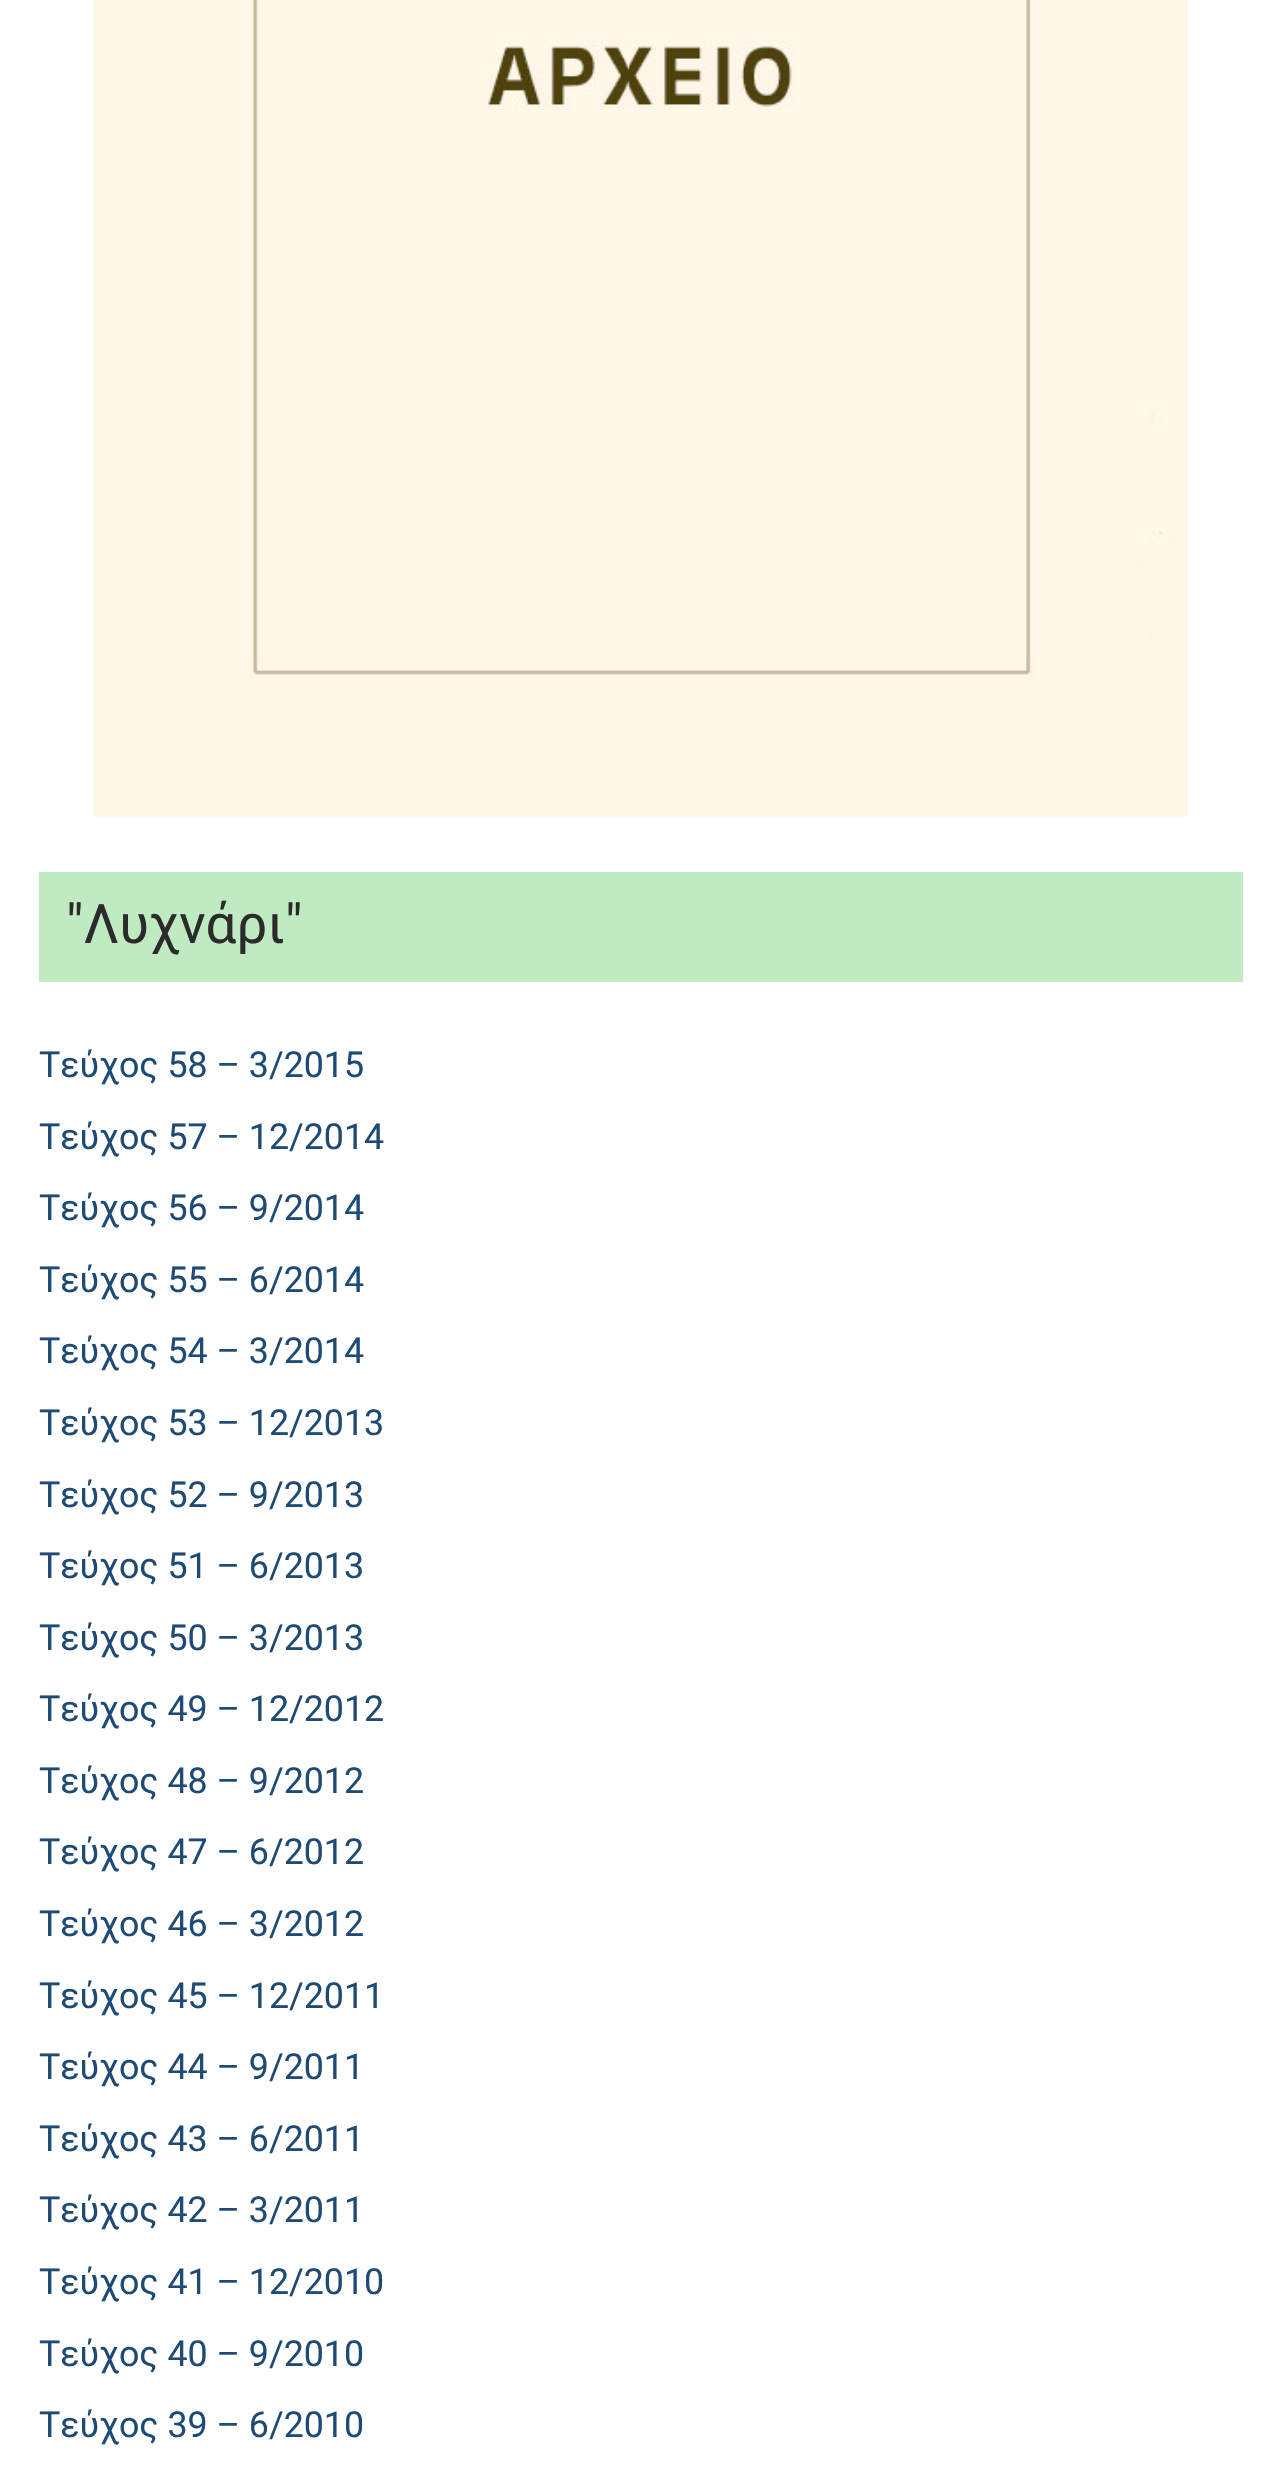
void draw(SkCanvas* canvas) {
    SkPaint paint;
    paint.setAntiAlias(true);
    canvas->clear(0xFFFFFFFF);
    canvas->drawImageRect(SkImages::DeferredFromEncodedData(SkData::MakeFromFileName("img1.png")), SkRect::MakeXYWH(93, 0, 1095, 817), SkSamplingOptions());
    paint.setColor(0xFFBFEAC2);
    canvas->drawRect(SkRect::MakeXYWH(39, 872, 1204, 110), paint);
    SkFont font1(fontMgr->matchFamilyStyle("Roboto", SkFontStyle::Normal()), 54.5f);
    font1.setSubpixel(true);
    paint.setColor(0xFF2B2B2B);
    canvas->drawString("\"Λυχνάρι\"", 66, 943, font1, paint);
    SkFont font2(fontMgr->matchFamilyStyle("Roboto", SkFontStyle::Normal()), 35.75f);
    font2.setSubpixel(true);
    paint.setColor(0xFF1E4B75);
    canvas->drawString("Τεύχος 58 – 3/2015", 39, 1077, font2, paint);
    canvas->drawString("Τεύχος 57 – 12/2014", 39, 1149, font2, paint);
    canvas->drawString("Τεύχος 56 – 9/2014", 39, 1220, font2, paint);
    canvas->drawString("Τεύχος 55 – 6/2014", 39, 1292, font2, paint);
    canvas->drawString("Τεύχος 54 – 3/2014", 39, 1363, font2, paint);
    canvas->drawString("Τεύχος 53 – 12/2013", 39, 1435, font2, paint);
    canvas->drawString("Τεύχος 52 – 9/2013", 39, 1507, font2, paint);
    canvas->drawString("Τεύχος 51 – 6/2013", 39, 1578, font2, paint);
    canvas->drawString("Τεύχος 50 – 3/2013", 39, 1650, font2, paint);
    canvas->drawString("Τεύχος 49 – 12/2012", 39, 1721, font2, paint);
    canvas->drawString("Τεύχος 48 – 9/2012", 39, 1793, font2, paint);
    canvas->drawString("Τεύχος 47 – 6/2012", 39, 1864, font2, paint);
    canvas->drawString("Τεύχος 46 – 3/2012", 39, 1936, font2, paint);
    canvas->drawString("Τεύχος 45 – 12/2011", 39, 2008, font2, paint);
    canvas->drawString("Τεύχος 44 – 9/2011", 39, 2079, font2, paint);
    canvas->drawString("Τεύχος 43 – 6/2011", 39, 2151, font2, paint);
    canvas->drawString("Τεύχος 42 – 3/2011", 39, 2222, font2, paint);
    canvas->drawString("Τεύχος 41 – 12/2010", 39, 2294, font2, paint);
    canvas->drawString("Τεύχος 40 – 9/2010", 39, 2366, font2, paint);
    canvas->drawString("Τεύχος 39 – 6/2010", 39, 2437, font2, paint);
}
